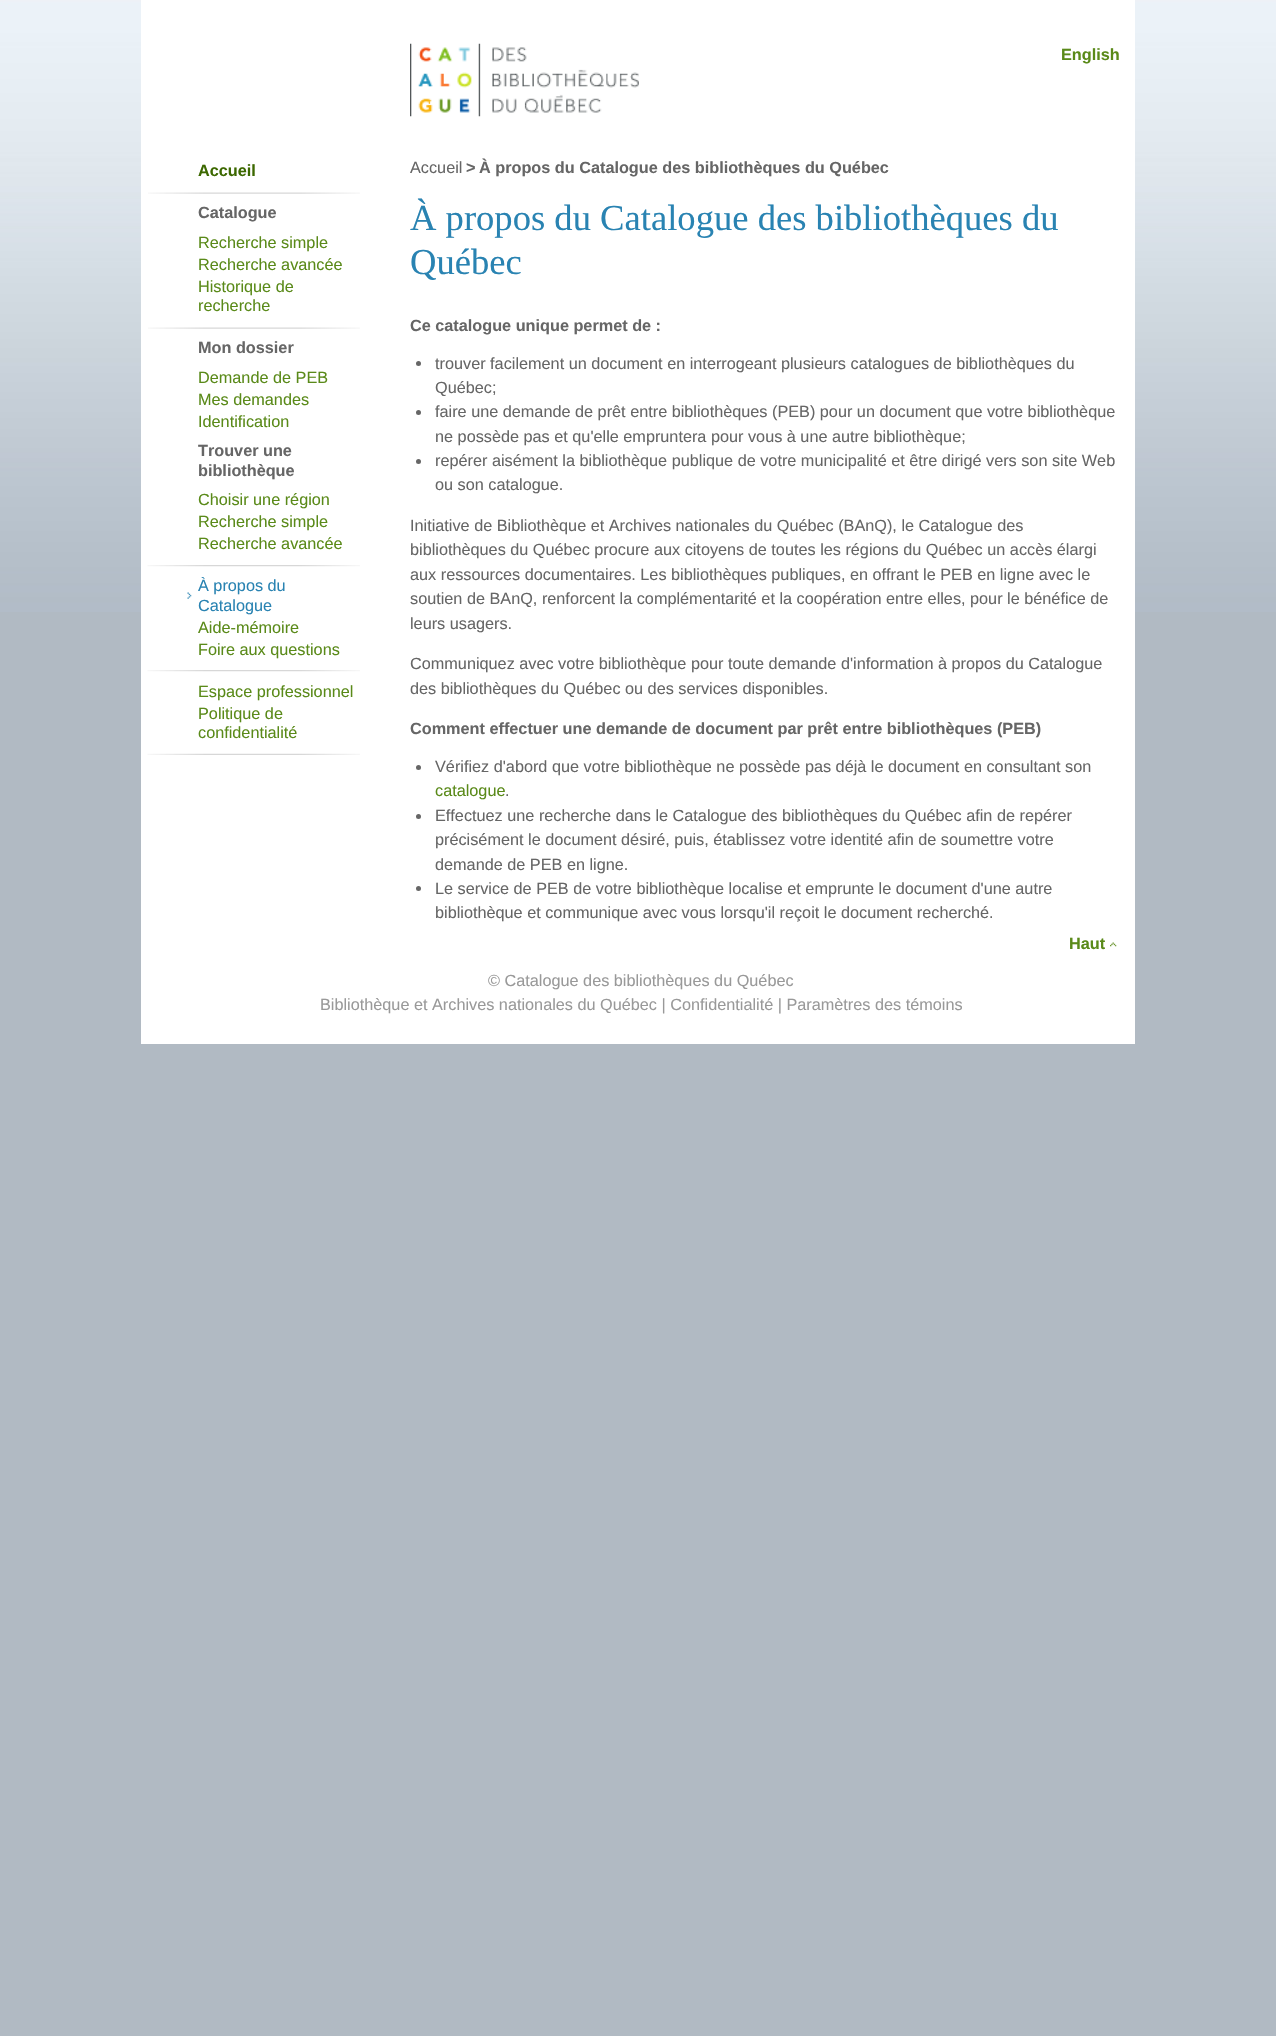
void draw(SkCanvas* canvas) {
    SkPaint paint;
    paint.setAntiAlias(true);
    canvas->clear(0xFFB1BAC3);
    canvas->drawImageRect(SkImages::DeferredFromEncodedData(SkData::MakeFromFileName("img1.png")), SkRect::MakeXYWH(0, 0, 1276, 612), SkSamplingOptions());
    paint.setColor(0xFFFFFFFF);
    canvas->drawRect(SkRect::MakeXYWH(141, 0, 994, 1044), paint);
    canvas->drawImageRect(SkImages::DeferredFromEncodedData(SkData::MakeFromFileName("img2.png")), SkRect::MakeXYWH(410, 43, 229, 74), SkSamplingOptions());
    SkFont font1(fontMgr->matchFamilyStyle("Liberation Sans", SkFontStyle::Bold()), 16.25f);
    font1.setSubpixel(true);
    paint.setColor(0xFF5A8A19);
    canvas->drawString("English", 1061, 60, font1, paint);
    canvas->drawImageRect(SkImages::DeferredFromEncodedData(SkData::MakeFromFileName("img3.png")), SkRect::MakeXYWH(148, 192, 212, 2), SkSamplingOptions());
    paint.setColor(0xFF3C6800);
    canvas->drawString("Accueil", 198, 176, font1, paint);
    paint.setColor(0xFF666666);
    canvas->drawString("Catalogue", 198, 218, font1, paint);
    SkFont font2(fontMgr->matchFamilyStyle("Liberation Sans", SkFontStyle::Normal()), 16.25f);
    font2.setSubpixel(true);
    paint.setColor(0xFF5A8A19);
    canvas->drawString("Recherche simple", 198, 248, font2, paint);
    canvas->drawString("Recherche avancée", 198, 270, font2, paint);
    canvas->drawImageRect(SkImages::DeferredFromEncodedData(SkData::MakeFromFileName("img3.png")), SkRect::MakeXYWH(148, 327, 212, 2), SkSamplingOptions());
    canvas->drawString("Historique de", 198, 292, font2, paint);
    canvas->drawString("recherche", 198, 311, font2, paint);
    paint.setColor(0xFF666666);
    canvas->drawString("Mon dossier", 198, 353, font1, paint);
    paint.setColor(0xFF5A8A19);
    canvas->drawString("Demande de PEB", 198, 383, font2, paint);
    canvas->drawString("Mes demandes", 198, 405, font2, paint);
    canvas->drawString("Identification", 198, 427, font2, paint);
    paint.setColor(0xFF666666);
    canvas->drawString("Trouver une", 198, 456, font1, paint);
    canvas->drawString("bibliothèque", 198, 476, font1, paint);
    paint.setColor(0xFF5A8A19);
    canvas->drawString("Choisir une région", 198, 505, font2, paint);
    canvas->drawString("Recherche simple", 198, 527, font2, paint);
    canvas->drawImageRect(SkImages::DeferredFromEncodedData(SkData::MakeFromFileName("img4.png")), SkRect::MakeXYWH(147, 565, 213, 2), SkSamplingOptions());
    canvas->drawString("Recherche avancée", 198, 549, font2, paint);
    canvas->drawImageRect(SkImages::DeferredFromEncodedData(SkData::MakeFromFileName("img5.png")), SkRect::MakeXYWH(187, 592, 5, 7), SkSamplingOptions());
    paint.setColor(0xFF2983B2);
    canvas->drawString("À propos du", 198, 591, font2, paint);
    canvas->drawString("Catalogue", 198, 611, font2, paint);
    paint.setColor(0xFF5A8A19);
    canvas->drawString("Aide-mémoire", 198, 633, font2, paint);
    canvas->drawImageRect(SkImages::DeferredFromEncodedData(SkData::MakeFromFileName("img4.png")), SkRect::MakeXYWH(147, 670, 213, 2), SkSamplingOptions());
    canvas->drawString("Foire aux questions", 198, 655, font2, paint);
    canvas->drawString("Espace professionnel", 198, 697, font2, paint);
    canvas->drawImageRect(SkImages::DeferredFromEncodedData(SkData::MakeFromFileName("img6.png")), SkRect::MakeXYWH(147, 753, 213, 2), SkSamplingOptions());
    canvas->drawString("Politique de", 198, 719, font2, paint);
    canvas->drawString("confidentialité", 198, 738, font2, paint);
    paint.setColor(0xFF666666);
    canvas->drawString("Accueil", 410, 173, font2, paint);
    canvas->drawString(">", 466, 173, font1, paint);
    canvas->drawString("À propos du Catalogue des bibliothèques du Québec", 479, 173, font1, paint);
    SkFont font3(fontMgr->matchFamilyStyle("Liberation Serif", SkFontStyle::Normal()), 36.6f);
    font3.setSubpixel(true);
    paint.setColor(0xFF2983B2);
    canvas->drawString("À propos du Catalogue des bibliothèques du", 410, 230, font3, paint);
    canvas->drawString("Québec", 410, 274, font3, paint);
    paint.setColor(0xFF666666);
    canvas->drawString("Ce catalogue unique permet de :", 410, 331, font1, paint);
    canvas->drawCircle(418.5f, 363.5f, 2.5f, paint);
    canvas->drawString("trouver facilement un document en interrogeant plusieurs catalogues de bibliothèques du", 435, 369, font2, paint);
    canvas->drawString("Québec;", 435, 393, font2, paint);
    canvas->drawCircle(418.5f, 412.5f, 2.5f, paint);
    canvas->drawString("faire une demande de prêt entre bibliothèques (PEB) pour un document que votre bibliothèque", 435, 417, font2, paint);
    canvas->drawString("ne possède pas et qu'elle empruntera pour vous à une autre bibliothèque;", 435, 442, font2, paint);
    canvas->drawCircle(418.5f, 461.5f, 2.5f, paint);
    canvas->drawString("repérer aisément la bibliothèque publique de votre municipalité et être dirigé vers son site Web", 435, 466, font2, paint);
    canvas->drawString("ou son catalogue.", 435, 490, font2, paint);
    canvas->drawString("Initiative de Bibliothèque et Archives nationales du Québec (BAnQ), le Catalogue des", 410, 531, font2, paint);
    canvas->drawString("bibliothèques du Québec procure aux citoyens de toutes les régions du Québec un accès élargi", 410, 555, font2, paint);
    canvas->drawString("aux ressources documentaires. Les bibliothèques publiques, en offrant le PEB en ligne avec le", 410, 580, font2, paint);
    canvas->drawString("soutien de BAnQ, renforcent la complémentarité et la coopération entre elles, pour le bénéfice de", 410, 604, font2, paint);
    canvas->drawString("leurs usagers.", 410, 629, font2, paint);
    canvas->drawString("Communiquez avec votre bibliothèque pour toute demande d'information à propos du Catalogue", 410, 669, font2, paint);
    canvas->drawString("des bibliothèques du Québec ou des services disponibles.", 410, 694, font2, paint);
    canvas->drawString("Comment effectuer une demande de document par prêt entre bibliothèques (PEB)", 410, 734, font1, paint);
    canvas->drawCircle(418.5f, 767.5f, 2.5f, paint);
    canvas->drawString("Vérifiez d'abord que votre bibliothèque ne possède pas déjà le document en consultant son", 435, 772, font2, paint);
    paint.setColor(0xFF5A8A19);
    canvas->drawString("catalogue", 435, 796, font2, paint);
    paint.setColor(0xFF666666);
    canvas->drawString(".", 505, 796, font2, paint);
    canvas->drawCircle(418.5f, 816.5f, 2.5f, paint);
    canvas->drawString("Effectuez une recherche dans le Catalogue des bibliothèques du Québec afin de repérer", 435, 821, font2, paint);
    canvas->drawString("précisément le document désiré, puis, établissez votre identité afin de soumettre votre", 435, 845, font2, paint);
    canvas->drawString("demande de PEB en ligne.", 435, 870, font2, paint);
    canvas->drawCircle(418.5f, 888.5f, 2.5f, paint);
    canvas->drawString("Le service de PEB de votre bibliothèque localise et emprunte le document d'une autre", 435, 894, font2, paint);
    canvas->drawString("bibliothèque et communique avec vous lorsqu'il reçoit le document recherché.", 435, 918, font2, paint);
    paint.setColor(0xFF5A8A19);
    canvas->drawString("Haut", 1069, 949, font1, paint);
    canvas->drawImageRect(SkImages::DeferredFromEncodedData(SkData::MakeFromFileName("img7.png")), SkRect::MakeXYWH(1110, 942, 7, 5), SkSamplingOptions());
    paint.setColor(0xFF999999);
    canvas->drawString("© Catalogue des bibliothèques du Québec", 488, 986, font2, paint);
    canvas->drawString("Bibliothèque et Archives nationales du Québec | Confidentialité | Paramètres des témoins", 320, 1010, font2, paint);
}
